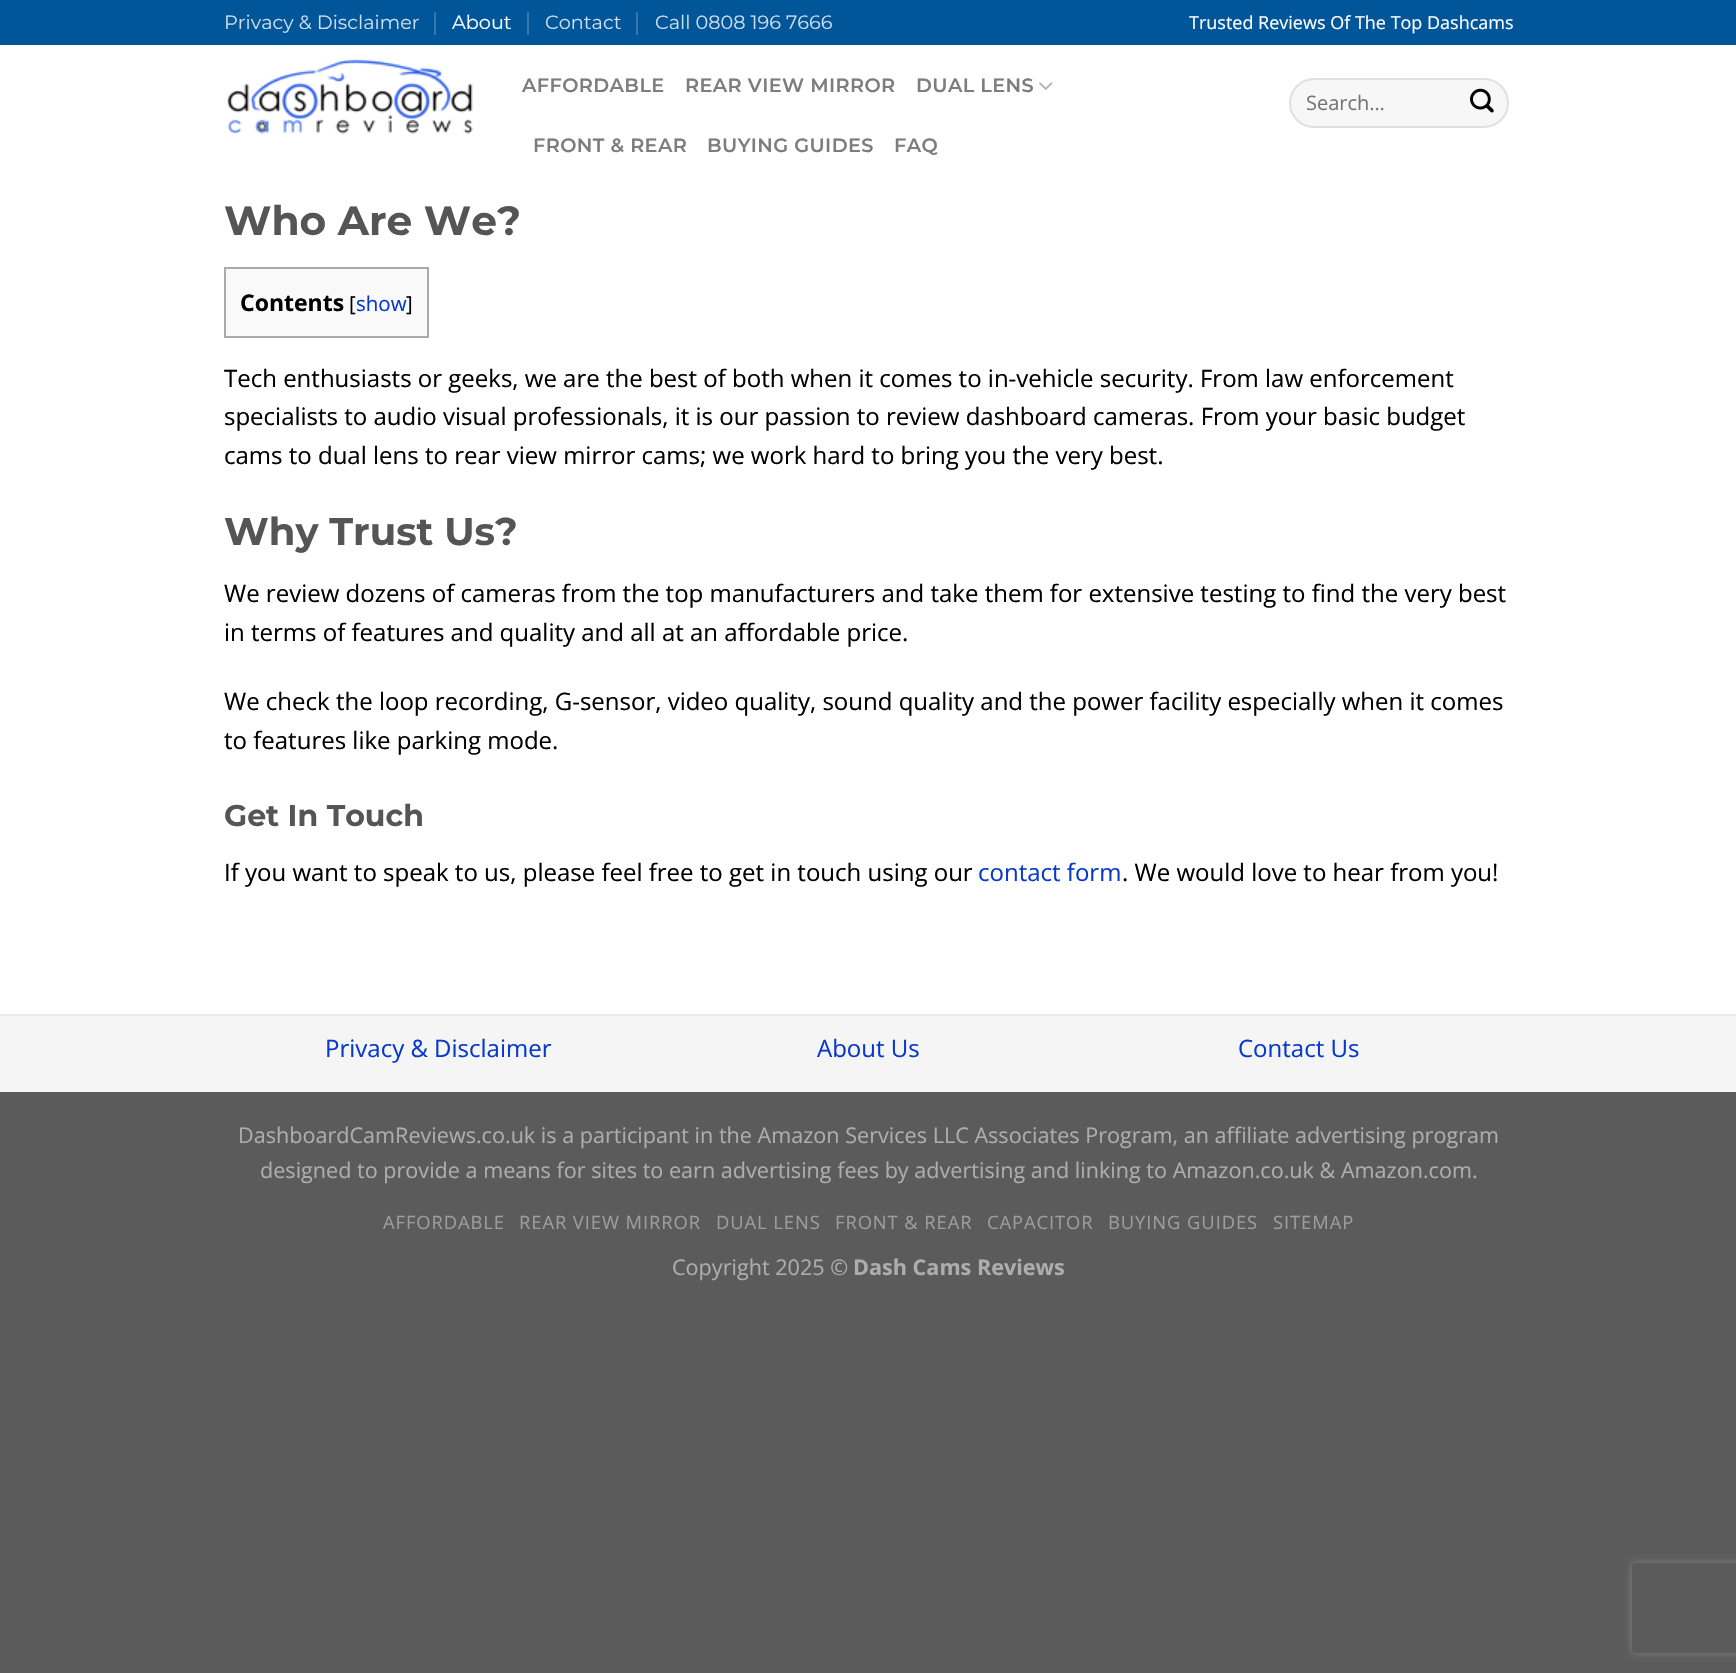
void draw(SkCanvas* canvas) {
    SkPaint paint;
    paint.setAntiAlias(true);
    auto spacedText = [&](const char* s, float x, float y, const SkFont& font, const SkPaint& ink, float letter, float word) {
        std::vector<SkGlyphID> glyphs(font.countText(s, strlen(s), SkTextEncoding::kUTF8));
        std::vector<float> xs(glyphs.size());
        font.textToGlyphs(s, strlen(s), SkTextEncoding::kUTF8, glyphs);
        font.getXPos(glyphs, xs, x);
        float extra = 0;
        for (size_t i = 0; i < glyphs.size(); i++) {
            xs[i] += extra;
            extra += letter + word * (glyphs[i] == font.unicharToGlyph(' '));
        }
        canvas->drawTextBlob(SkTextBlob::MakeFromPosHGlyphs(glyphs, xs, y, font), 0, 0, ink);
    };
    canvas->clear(0xFF5B5B5B);
    paint.setColor(0xFFFFFFFF);
    canvas->drawRect(SkRect::MakeXYWH(0, 45, 1736, 969), paint);
    paint.setColor(0xFF01569A);
    canvas->drawRect(SkRect::MakeXYWH(0, 0, 1736, 45), paint);
    SkFont font1(fontMgr->matchFamilyStyle("Montserrat", SkFontStyle::Normal()), 19.25f);
    font1.setSubpixel(true);
    paint.setColor(0xFFCCDDEB);
    canvas->drawString("Privacy & Disclaimer", 224, 29, font1, paint);
    paint.setColor(0xFF3478AE);
    canvas->drawRect(SkRect::MakeXYWH(434, 12, 2, 23), paint);
    paint.setColor(0xFFFFFFFF);
    canvas->drawString("About", 452, 29, font1, paint);
    paint.setColor(0xFF3478AE);
    canvas->drawRect(SkRect::MakeXYWH(527, 12, 2, 23), paint);
    paint.setColor(0xFFCCDDEB);
    canvas->drawString("Contact", 545, 29, font1, paint);
    paint.setColor(0xFF3478AE);
    canvas->drawRect(SkRect::MakeXYWH(636, 12, 2, 23), paint);
    paint.setColor(0xFFCCDDEB);
    canvas->drawString("Call 0808 196 7666", 655, 29, font1, paint);
    SkFont font2(fontMgr->matchFamilyStyle("Open Sans", SkFontStyle::Normal()), 18);
    font2.setSubpixel(true);
    paint.setColor(0xFFFFFFFF);
    canvas->drawString("Trusted Reviews Of The Top Dashcams", 1189, 29, font2, paint);
    canvas->drawImageRect(SkImages::DeferredFromEncodedData(SkData::MakeFromFileName("img1.png")), SkRect::MakeXYWH(227, 59, 246, 75), SkSamplingOptions());
    SkFont font3(fontMgr->matchFamilyStyle("Montserrat", SkFontStyle(600, SkFontStyle::kNormal_Width, SkFontStyle::kUpright_Slant)), 19.25f);
    font3.setSubpixel(true);
    paint.setColor(0xFF7D7D7D);
    spacedText("AFFORDABLE", 522, 92, font3, paint, 0.4f, 0);
    spacedText("REAR VIEW MIRROR", 685, 92, font3, paint, 0.4f, 0);
    spacedText("DUAL LENS", 916, 92, font3, paint, 0.4f, 0);
    canvas->drawImageRect(SkImages::DeferredFromEncodedData(SkData::MakeFromFileName("img2.png")), SkRect::MakeXYWH(1039, 82, 14, 8), SkSamplingOptions());
    spacedText("FRONT & REAR", 533, 152, font3, paint, 0.4f, 0);
    spacedText("BUYING GUIDES", 707, 152, font3, paint, 0.4f, 0);
    spacedText("FAQ", 894, 152, font3, paint, 0.4f, 0);
    paint.setColor(0xFFF7F7F7);
    canvas->drawRoundRect(SkRect::MakeXYWH(1289, 78, 220, 50), 25, 25, paint);
    paint.setStyle(SkPaint::kStroke_Style);
    paint.setStrokeWidth(2);
    paint.setColor(0x17000000);
    canvas->drawRoundRect(SkRect::MakeXYWH(1290, 79, 218, 48), 24, 24, paint);
    SkFont font4(fontMgr->matchFamilyStyle("Open Sans", SkFontStyle::Normal()), 20);
    font4.setSubpixel(true);
    paint.setStyle(SkPaint::kFill_Style);
    paint.setColor(0xFF757575);
    canvas->drawString("Search…", 1306, 110, font4, paint);
    canvas->drawImageRect(SkImages::DeferredFromEncodedData(SkData::MakeFromFileName("img3.png")), SkRect::MakeXYWH(1470, 88, 24, 25), SkSamplingOptions());
    SkFont font5(fontMgr->matchFamilyStyle("Montserrat", SkFontStyle::Bold()), 40.75f);
    font5.setSubpixel(true);
    paint.setColor(0xFF555555);
    canvas->drawString("Who Are We?", 224, 235, font5, paint);
    paint.setColor(0xFFF9F9F9);
    canvas->drawRect(SkRect::MakeXYWH(225, 268, 203, 69), paint);
    paint.setStyle(SkPaint::kStroke_Style);
    paint.setColor(0xFFAAAAAA);
    canvas->drawRect(SkRect::MakeXYWH(225, 268, 203, 69), paint);
    SkFont font6(fontMgr->matchFamilyStyle("Open Sans", SkFontStyle::Bold()), 23);
    font6.setSubpixel(true);
    paint.setStyle(SkPaint::kFill_Style);
    paint.setColor(0xFF000000);
    canvas->drawString("Contents", 240, 311, font6, paint);
    SkFont font7(fontMgr->matchFamilyStyle("Open Sans", SkFontStyle::Normal()), 20.5f);
    font7.setSubpixel(true);
    canvas->drawString("[", 349, 311, font7, paint);
    paint.setColor(0xFF0839CD);
    canvas->drawString("show", 356, 311, font7, paint);
    paint.setColor(0xFF000000);
    canvas->drawString("]", 406, 311, font7, paint);
    SkFont font8(fontMgr->matchFamilyStyle("Open Sans", SkFontStyle::Normal()), 24);
    font8.setSubpixel(true);
    canvas->drawString("Tech enthusiasts or geeks, we are the best of both when it comes to in-vehicle security. From law enforcement", 224, 387, font8, paint);
    canvas->drawString("specialists to audio visual professionals, it is our passion to review dashboard cameras. From your basic budget", 224, 425, font8, paint);
    canvas->drawString("cams to dual lens to rear view mirror cams; we work hard to bring you the very best.", 224, 464, font8, paint);
    SkFont font9(fontMgr->matchFamilyStyle("Montserrat", SkFontStyle::Bold()), 38.5f);
    font9.setSubpixel(true);
    paint.setColor(0xFF555555);
    canvas->drawString("Why Trust Us?", 224, 545, font9, paint);
    paint.setColor(0xFF000000);
    canvas->drawString("We review dozens of cameras from the top manufacturers and take them for extensive testing to find the very best", 224, 602, font8, paint);
    canvas->drawString("in terms of features and quality and all at an affordable price.", 224, 641, font8, paint);
    canvas->drawString("We check the loop recording, G-sensor, video quality, sound quality and the power facility especially when it comes", 224, 710, font8, paint);
    canvas->drawString("to features like parking mode.", 224, 749, font8, paint);
    SkFont font10(fontMgr->matchFamilyStyle("Montserrat", SkFontStyle::Bold()), 30);
    font10.setSubpixel(true);
    paint.setColor(0xFF555555);
    canvas->drawString("Get In Touch", 224, 826, font10, paint);
    paint.setColor(0xFF000000);
    canvas->drawString("If you want to speak to us, please feel free to get in touch using our", 224, 881, font8, paint);
    paint.setColor(0xFF0839CD);
    canvas->drawString("contact form", 978, 881, font8, paint);
    paint.setColor(0xFF000000);
    canvas->drawString(". We would love to hear from you!", 1122, 881, font8, paint);
    paint.setColor(0xFFF5F5F5);
    canvas->drawRect(SkRect::MakeXYWH(0, 1016, 1736, 76), paint);
    paint.setColor(0xFFEBEBEB);
    canvas->drawRect(SkRect::MakeXYWH(0, 1014, 1736, 2), paint);
    paint.setColor(0xFF0839CD);
    canvas->drawString("Privacy & Disclaimer", 325, 1057, font8, paint);
    canvas->drawString("About Us", 817, 1057, font8, paint);
    canvas->drawString("Contact Us", 1238, 1057, font8, paint);
    SkFont font11(fontMgr->matchFamilyStyle("Open Sans", SkFontStyle::Normal()), 21.6f);
    font11.setSubpixel(true);
    paint.setColor(0xFFADADAD);
    canvas->drawString("DashboardCamReviews.co.uk is a participant in the Amazon Services LLC Associates Program, an affiliate advertising program", 238, 1143, font11, paint);
    canvas->drawString("designed to provide a means for sites to earn advertising fees by advertising and linking to Amazon.co.uk & Amazon.com.", 260, 1178, font11, paint);
    SkFont font12(fontMgr->matchFamilyStyle("Open Sans", SkFontStyle::Normal()), 18.4f);
    font12.setSubpixel(true);
    paint.setColor(0xFF9D9D9D);
    spacedText("AFFORDABLE", 383, 1229, font12, paint, 0.9f, 0);
    spacedText("REAR VIEW MIRROR", 519, 1229, font12, paint, 0.9f, 0);
    spacedText("DUAL LENS", 716, 1229, font12, paint, 0.9f, 0);
    spacedText("FRONT & REAR", 835, 1229, font12, paint, 0.9f, 0);
    spacedText("CAPACITOR", 987, 1229, font12, paint, 0.9f, 0);
    spacedText("BUYING GUIDES", 1108, 1229, font12, paint, 0.9f, 0);
    spacedText("SITEMAP", 1273, 1229, font12, paint, 0.9f, 0);
    paint.setColor(0xFFADADAD);
    canvas->drawString("Copyright 2025 ©", 672, 1275, font11, paint);
    SkFont font13(fontMgr->matchFamilyStyle("Open Sans", SkFontStyle::Bold()), 21.6f);
    font13.setSubpixel(true);
    canvas->drawString("Dash Cams Reviews", 853, 1275, font13, paint);
    canvas->save();
    canvas->clipPath(SkPathBuilder(SkPathFillType::kEvenOdd).moveTo(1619, 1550).lineTo(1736, 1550).lineTo(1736, 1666).lineTo(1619, 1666).close().moveTo(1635, 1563).lineTo(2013, 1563).cubicTo(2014.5f, 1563, 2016, 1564.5f, 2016, 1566).lineTo(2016, 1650).cubicTo(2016, 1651.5f, 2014.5f, 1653, 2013, 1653).lineTo(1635, 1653).cubicTo(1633.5f, 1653, 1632, 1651.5f, 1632, 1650).lineTo(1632, 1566).cubicTo(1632, 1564.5f, 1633.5f, 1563, 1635, 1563).close().detach(), true);
    paint.setColor(0xFF808080);
    paint.setMaskFilter(SkMaskFilter::MakeBlur(kNormal_SkBlurStyle, 4));
    canvas->drawRoundRect(SkRect::MakeXYWH(1632, 1563, 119, 90), 3, 3, paint);
    paint.setMaskFilter(nullptr);
    canvas->restore();
}
